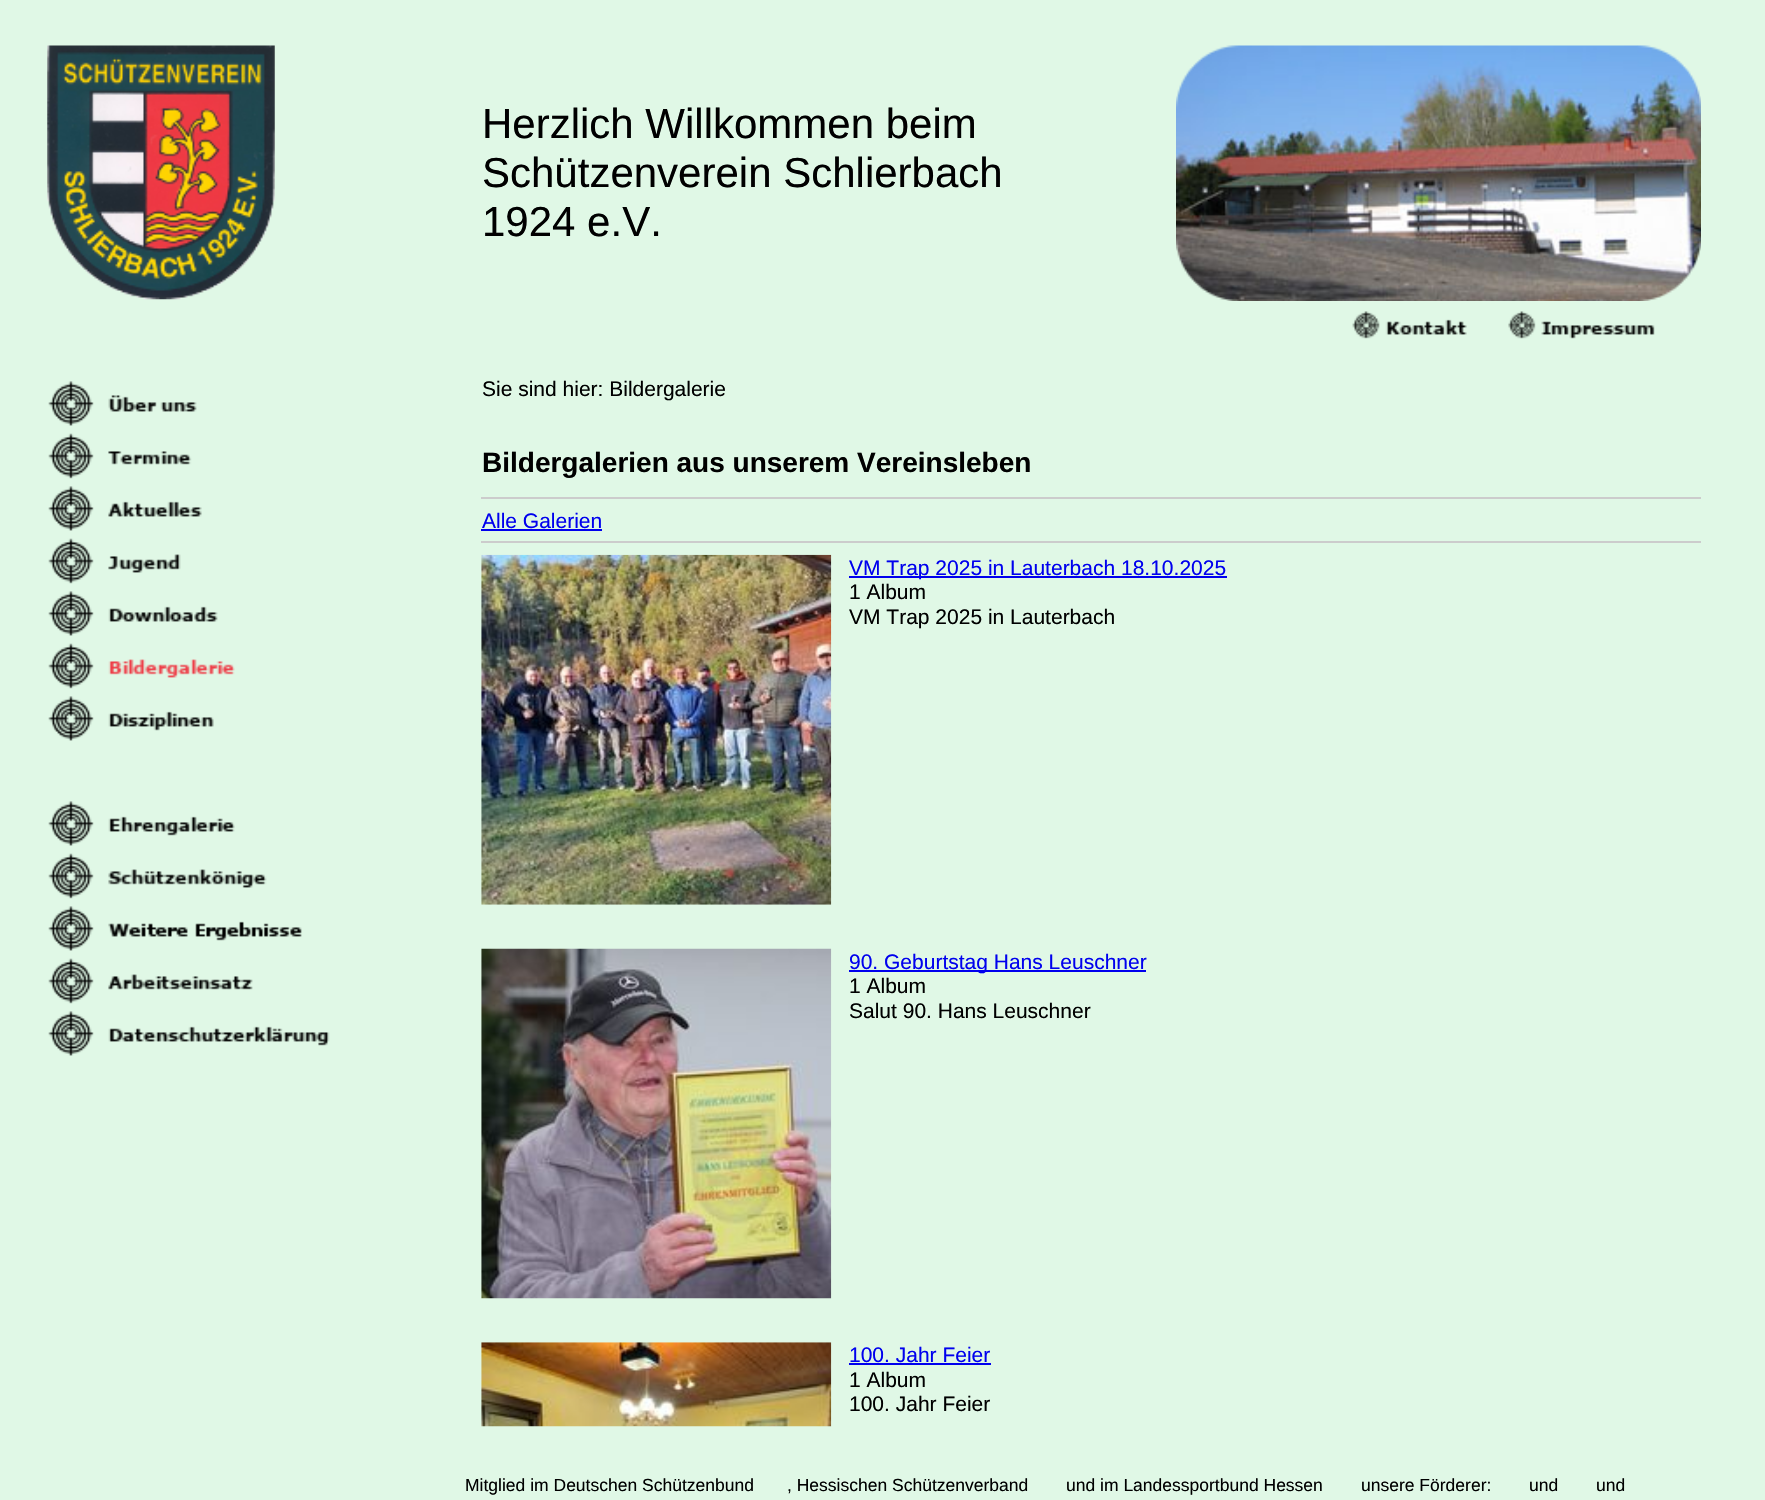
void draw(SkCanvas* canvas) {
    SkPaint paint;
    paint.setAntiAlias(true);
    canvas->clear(0xFFE0F8E6);
    canvas->drawImageRect(SkImages::DeferredFromEncodedData(SkData::MakeFromFileName("img1.png")), SkRect::MakeXYWH(47, 45, 228, 255), SkSamplingOptions());
    SkFont font1(fontMgr->matchFamilyStyle("Liberation Sans", SkFontStyle::Normal()), 42);
    font1.setSubpixel(true);
    paint.setColor(0xFF000000);
    canvas->drawString("Herzlich Willkommen beim", 482, 138, font1, paint);
    canvas->drawString("Schützenverein Schlierbach", 482, 187, font1, paint);
    canvas->drawString("1924 e.V.", 482, 236, font1, paint);
    canvas->drawImageRect(SkImages::DeferredFromEncodedData(SkData::MakeFromFileName("img2.png")), SkRect::MakeXYWH(1176, 45, 525, 256), SkSamplingOptions());
    canvas->drawImageRect(SkImages::DeferredFromEncodedData(SkData::MakeFromFileName("img3.png")), SkRect::MakeXYWH(1352, 311, 115, 28), SkSamplingOptions());
    canvas->drawImageRect(SkImages::DeferredFromEncodedData(SkData::MakeFromFileName("img4.png")), SkRect::MakeXYWH(1508, 311, 147, 28), SkSamplingOptions());
    canvas->drawImageRect(SkImages::DeferredFromEncodedData(SkData::MakeFromFileName("img5.png")), SkRect::MakeXYWH(48, 381, 149, 45), SkSamplingOptions());
    canvas->drawImageRect(SkImages::DeferredFromEncodedData(SkData::MakeFromFileName("img6.png")), SkRect::MakeXYWH(48, 433, 144, 46), SkSamplingOptions());
    canvas->drawImageRect(SkImages::DeferredFromEncodedData(SkData::MakeFromFileName("img7.png")), SkRect::MakeXYWH(48, 486, 154, 45), SkSamplingOptions());
    canvas->drawImageRect(SkImages::DeferredFromEncodedData(SkData::MakeFromFileName("img8.png")), SkRect::MakeXYWH(48, 538, 133, 46), SkSamplingOptions());
    canvas->drawImageRect(SkImages::DeferredFromEncodedData(SkData::MakeFromFileName("img9.png")), SkRect::MakeXYWH(48, 591, 170, 45), SkSamplingOptions());
    canvas->drawImageRect(SkImages::DeferredFromEncodedData(SkData::MakeFromFileName("img10.png")), SkRect::MakeXYWH(48, 643, 187, 46), SkSamplingOptions());
    canvas->drawImageRect(SkImages::DeferredFromEncodedData(SkData::MakeFromFileName("img11.png")), SkRect::MakeXYWH(48, 696, 166, 45), SkSamplingOptions());
    canvas->drawImageRect(SkImages::DeferredFromEncodedData(SkData::MakeFromFileName("img12.png")), SkRect::MakeXYWH(48, 801, 187, 45), SkSamplingOptions());
    canvas->drawImageRect(SkImages::DeferredFromEncodedData(SkData::MakeFromFileName("img13.png")), SkRect::MakeXYWH(48, 853, 219, 46), SkSamplingOptions());
    canvas->drawImageRect(SkImages::DeferredFromEncodedData(SkData::MakeFromFileName("img14.png")), SkRect::MakeXYWH(48, 906, 254, 45), SkSamplingOptions());
    canvas->drawImageRect(SkImages::DeferredFromEncodedData(SkData::MakeFromFileName("img15.png")), SkRect::MakeXYWH(48, 958, 205, 46), SkSamplingOptions());
    canvas->drawImageRect(SkImages::DeferredFromEncodedData(SkData::MakeFromFileName("img16.png")), SkRect::MakeXYWH(48, 1011, 282, 45), SkSamplingOptions());
    SkFont font2(fontMgr->matchFamilyStyle("Liberation Sans", SkFontStyle::Normal()), 21);
    font2.setSubpixel(true);
    canvas->drawString("Sie sind hier: Bildergalerie", 482, 396, font2, paint);
    SkFont font3(fontMgr->matchFamilyStyle("Liberation Sans", SkFontStyle::Bold()), 28);
    font3.setSubpixel(true);
    canvas->drawString("Bildergalerien aus unserem Vereinsleben", 482, 472, font3, paint);
    paint.setColor(0xFFCCCCCC);
    canvas->drawRect(SkRect::MakeXYWH(481, 497, 1220, 2), paint);
    canvas->drawRect(SkRect::MakeXYWH(481, 541, 1220, 2), paint);
    paint.setColor(0xFF0000EE);
    canvas->drawString("Alle Galerien", 482, 528, font2, paint);
    canvas->drawRect(SkRect::MakeXYWH(481, 529, 121, 2), paint);
    canvas->drawImageRect(SkImages::DeferredFromEncodedData(SkData::MakeFromFileName("img17.png")), SkRect::MakeXYWH(481, 554, 351, 351), SkSamplingOptions());
    canvas->drawRect(SkRect::MakeXYWH(849, 576, 378, 2), paint);
    canvas->drawString("VM Trap 2025 in Lauterbach 18.10.2025", 849, 575, font2, paint);
    paint.setColor(0xFF000000);
    canvas->drawString("1 Album", 849, 599, font2, paint);
    canvas->drawString("VM Trap 2025 in Lauterbach", 849, 624, font2, paint);
    canvas->drawImageRect(SkImages::DeferredFromEncodedData(SkData::MakeFromFileName("img18.png")), SkRect::MakeXYWH(481, 948, 351, 351), SkSamplingOptions());
    paint.setColor(0xFF0000EE);
    canvas->drawRect(SkRect::MakeXYWH(849, 970, 297, 2), paint);
    canvas->drawString("90. Geburtstag Hans Leuschner", 849, 969, font2, paint);
    paint.setColor(0xFF000000);
    canvas->drawString("1 Album", 849, 993, font2, paint);
    canvas->drawString("Salut 90. Hans Leuschner", 849, 1018, font2, paint);
    canvas->drawImageRect(SkImages::DeferredFromEncodedData(SkData::MakeFromFileName("img19.png")), SkRect::MakeXYWH(481, 1342, 351, 85), SkSamplingOptions());
    paint.setColor(0xFF0000EE);
    canvas->drawString("100. Jahr Feier", 849, 1362, font2, paint);
    canvas->drawRect(SkRect::MakeXYWH(849, 1363, 142, 2), paint);
    paint.setColor(0xFF000000);
    canvas->drawString("1 Album", 849, 1387, font2, paint);
    canvas->drawString("100. Jahr Feier", 849, 1411, font2, paint);
    SkFont font4(fontMgr->matchFamilyStyle("Liberation Sans", SkFontStyle::Normal()), 17.5f);
    font4.setSubpixel(true);
    canvas->drawString("Mitglied im Deutschen Schützenbund", 465, 1491, font4, paint);
    canvas->drawString(", Hessischen Schützenverband", 787, 1491, font4, paint);
    canvas->drawString("und im Landessportbund Hessen", 1066, 1491, font4, paint);
    canvas->drawString("unsere Förderer:", 1361, 1491, font4, paint);
    canvas->drawString("und", 1529, 1491, font4, paint);
    canvas->drawString("und", 1596, 1491, font4, paint);
}
